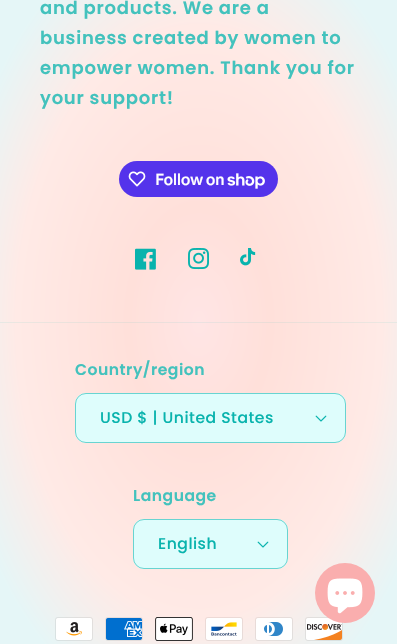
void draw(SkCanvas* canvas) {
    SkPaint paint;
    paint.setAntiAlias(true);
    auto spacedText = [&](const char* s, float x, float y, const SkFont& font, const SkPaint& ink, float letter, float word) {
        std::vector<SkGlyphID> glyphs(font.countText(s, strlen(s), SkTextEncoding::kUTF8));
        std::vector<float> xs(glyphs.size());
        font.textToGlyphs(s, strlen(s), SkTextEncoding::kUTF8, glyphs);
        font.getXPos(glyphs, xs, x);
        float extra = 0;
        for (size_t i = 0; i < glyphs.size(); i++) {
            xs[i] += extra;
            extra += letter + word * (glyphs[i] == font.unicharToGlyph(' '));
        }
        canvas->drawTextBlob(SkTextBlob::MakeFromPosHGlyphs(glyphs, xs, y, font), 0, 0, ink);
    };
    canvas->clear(0xFFFFFFFF);
    {
        const SkColor colors[] = {0xFFFFE5E5, 0xFFFFE0DA, 0xFFFFEAE6, 0xFFE5F6F7};
        const float stops[] = {0, 0.25f, 0.65f, 0.9f};
        SkMatrix m = SkMatrix::Translate(199, 322).preScale(281, 455);
        paint.setShader(SkGradientShader::MakeRadial({0, 0}, 1, colors, stops, 4, SkTileMode::kClamp, 0, &m));
        paint.setAlpha(255);
    }
    canvas->drawRect(SkRect::MakeXYWH(0, 0, 397, 644), paint);
    {
        const SkColor colors[] = {0xFFEBE1E1, 0xFFEBDCD6, 0xFFEBE6E1, 0xFFD3F1F1};
        const float stops[] = {0, 0.25f, 0.65f, 0.9f};
        SkMatrix m = SkMatrix::Translate(199, 322).preScale(281, 455);
        paint.setShader(SkGradientShader::MakeRadial({0, 0}, 1, colors, stops, 4, SkTileMode::kClamp, 0, &m));
        paint.setAlpha(255);
    }
    canvas->drawRect(SkRect::MakeXYWH(0, 322, 397, 1), paint);
    SkFont font1(fontMgr->matchFamilyStyle("Poppins", SkFontStyle(600, SkFontStyle::kNormal_Width, SkFontStyle::kUpright_Slant)), 18);
    font1.setSubpixel(true);
    paint.setShader(nullptr);
    paint.setColor(0xFF43C2BD);
    spacedText("and products. We are a", 40, 14, font1, paint, 0.75f, 0);
    spacedText("business created by women to", 40, 44, font1, paint, 0.75f, 0);
    spacedText("empower women. Thank you for", 40, 74, font1, paint, 0.75f, 0);
    spacedText("your support!", 40, 104, font1, paint, 0.75f, 0);
    paint.setColor(0xFF5433EB);
    canvas->drawRoundRect(SkRect::MakeXYWH(119, 161, 159, 36), 18, 18, paint);
    canvas->drawImageRect(SkImages::DeferredFromEncodedData(SkData::MakeFromFileName("img1.png")), SkRect::MakeXYWH(128, 171, 18, 16), SkSamplingOptions());
    SkFont font2(fontMgr->matchFamilyStyle("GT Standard", SkFontStyle(600, SkFontStyle::kNormal_Width, SkFontStyle::kUpright_Slant)), 16);
    font2.setSubpixel(true);
    paint.setColor(0xFFFFFFFF);
    spacedText("Follow on", 155, 185, font2, paint, -0.5f, 0);
    canvas->drawImageRect(SkImages::DeferredFromEncodedData(SkData::MakeFromFileName("img2.png")), SkRect::MakeXYWH(227, 173, 38, 16), SkSamplingOptions());
    canvas->drawImageRect(SkImages::DeferredFromEncodedData(SkData::MakeFromFileName("img3.png")), SkRect::MakeXYWH(135, 248, 21, 22), SkSamplingOptions());
    canvas->drawImageRect(SkImages::DeferredFromEncodedData(SkData::MakeFromFileName("img4.png")), SkRect::MakeXYWH(188, 248, 21, 22), SkSamplingOptions());
    canvas->drawImageRect(SkImages::DeferredFromEncodedData(SkData::MakeFromFileName("img5.png")), SkRect::MakeXYWH(240, 248, 16, 18), SkSamplingOptions());
    SkFont font3(fontMgr->matchFamilyStyle("Poppins", SkFontStyle(600, SkFontStyle::kNormal_Width, SkFontStyle::kUpright_Slant)), 15.6f);
    font3.setSubpixel(true);
    paint.setColor(0xFF43C2BD);
    spacedText("Country/region", 75, 375, font3, paint, 0.5f, 0);
    paint.setColor(0xFFDEFDFC);
    canvas->drawRoundRect(SkRect::MakeXYWH(75, 393, 271, 50), 11, 11, paint);
    canvas->drawImageRect(SkImages::DeferredFromEncodedData(SkData::MakeFromFileName("img6.png")), SkRect::MakeXYWH(315, 415, 12, 7), SkSamplingOptions());
    paint.setStyle(SkPaint::kStroke_Style);
    paint.setStrokeWidth(1);
    paint.setColor(0x8C08B3AD);
    canvas->drawRoundRect(SkRect::MakeXYWH(75.5f, 393.5f, 270, 49), 10.5f, 10.5f, paint);
    SkFont font4(fontMgr->matchFamilyStyle("Poppins", SkFontStyle(500, SkFontStyle::kNormal_Width, SkFontStyle::kUpright_Slant)), 15.6f);
    font4.setSubpixel(true);
    paint.setStyle(SkPaint::kFill_Style);
    paint.setColor(0xFF08B3AD);
    spacedText("USD $ | United States", 100, 423, font4, paint, 0.5f, 0);
    paint.setColor(0xFF43C2BD);
    spacedText("Language", 133, 501, font3, paint, 0.5f, 0);
    paint.setColor(0xFFDEFDFC);
    canvas->drawRoundRect(SkRect::MakeXYWH(133, 519, 155, 50), 11, 11, paint);
    canvas->drawImageRect(SkImages::DeferredFromEncodedData(SkData::MakeFromFileName("img6.png")), SkRect::MakeXYWH(257, 541, 12, 7), SkSamplingOptions());
    paint.setStyle(SkPaint::kStroke_Style);
    paint.setColor(0x8C08B3AD);
    canvas->drawRoundRect(SkRect::MakeXYWH(133.5f, 519.5f, 154, 49), 10.5f, 10.5f, paint);
    paint.setStyle(SkPaint::kFill_Style);
    paint.setColor(0xFF08B3AD);
    spacedText("English", 158, 549, font4, paint, 0.5f, 0);
    canvas->drawImageRect(SkImages::DeferredFromEncodedData(SkData::MakeFromFileName("img7.png")), SkRect::MakeXYWH(55, 617, 38, 24), SkSamplingOptions());
    canvas->drawImageRect(SkImages::DeferredFromEncodedData(SkData::MakeFromFileName("img8.png")), SkRect::MakeXYWH(105, 617, 38, 24), SkSamplingOptions());
    canvas->drawImageRect(SkImages::DeferredFromEncodedData(SkData::MakeFromFileName("img9.png")), SkRect::MakeXYWH(155, 617, 38, 24), SkSamplingOptions());
    canvas->drawImageRect(SkImages::DeferredFromEncodedData(SkData::MakeFromFileName("img10.png")), SkRect::MakeXYWH(205, 617, 38, 24), SkSamplingOptions());
    canvas->drawImageRect(SkImages::DeferredFromEncodedData(SkData::MakeFromFileName("img11.png")), SkRect::MakeXYWH(255, 617, 38, 24), SkSamplingOptions());
    canvas->drawImageRect(SkImages::DeferredFromEncodedData(SkData::MakeFromFileName("img12.png")), SkRect::MakeXYWH(305, 617, 38, 24), SkSamplingOptions());
    paint.setColor(0xFFFAAEAE);
    canvas->drawCircle(345, 593, 30, paint);
    canvas->drawImageRect(SkImages::DeferredFromEncodedData(SkData::MakeFromFileName("img13.png")), SkRect::MakeXYWH(327, 578, 36, 36), SkSamplingOptions());
}
